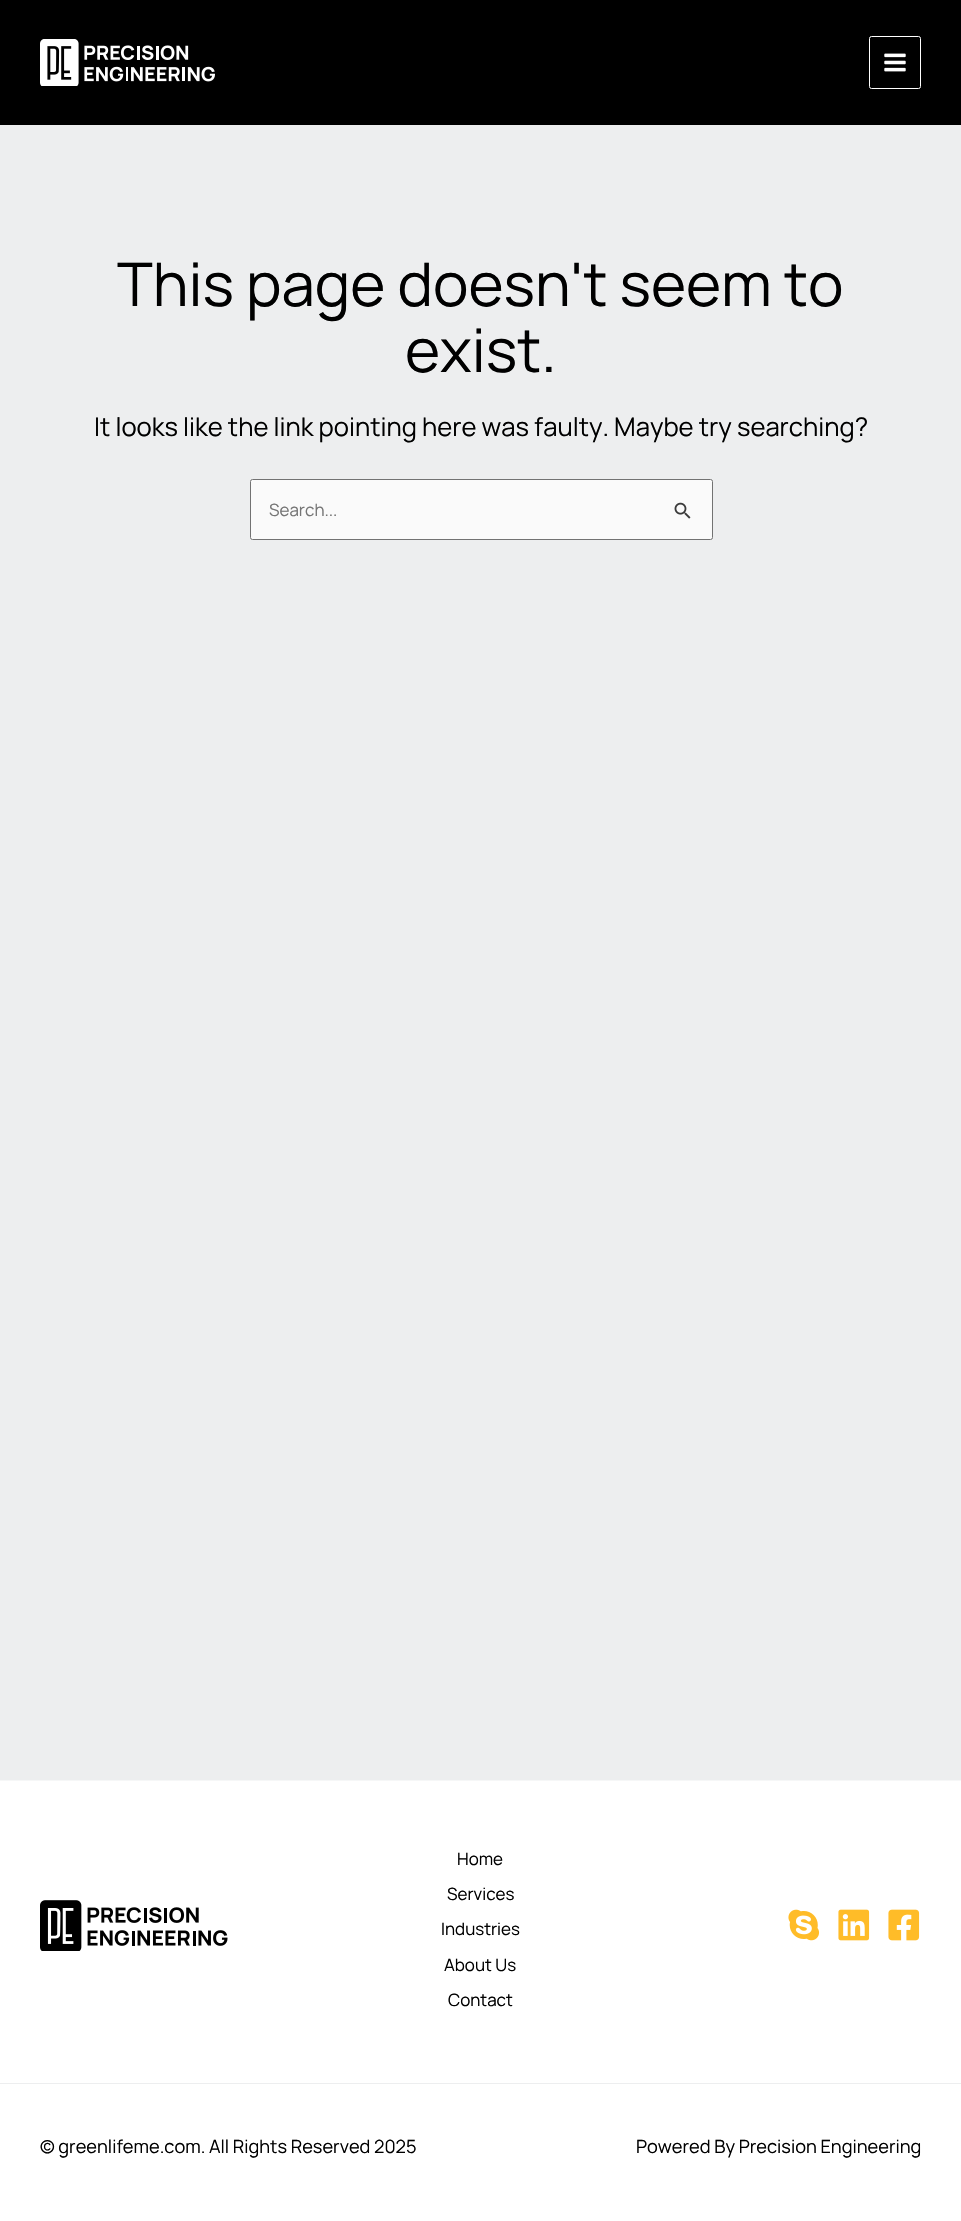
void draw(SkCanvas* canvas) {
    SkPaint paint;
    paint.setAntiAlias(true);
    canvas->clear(0xFFEDEEEF);
    paint.setColor(0xFF000000);
    canvas->drawRect(SkRect::MakeXYWH(0, 0, 961, 125), paint);
    canvas->drawImageRect(SkImages::DeferredFromEncodedData(SkData::MakeFromFileName("img1.png")), SkRect::MakeXYWH(40, 39, 175, 47), SkSamplingOptions());
    paint.setStyle(SkPaint::kStroke_Style);
    paint.setStrokeWidth(1);
    paint.setColor(0xFFFFFFFF);
    canvas->drawRoundRect(SkRect::MakeXYWH(869.5f, 36.5f, 51, 52), 2, 2, paint);
    canvas->drawImageRect(SkImages::DeferredFromEncodedData(SkData::MakeFromFileName("img2.png")), SkRect::MakeXYWH(884, 53, 22, 19), SkSamplingOptions());
    SkFont font1(fontMgr->matchFamilyStyle("Manrope", SkFontStyle::Normal()), 60);
    font1.setSubpixel(true);
    paint.setStyle(SkPaint::kFill_Style);
    paint.setColor(0xFF000000);
    canvas->drawString("This page doesn't seem to", 117, 306, font1, paint);
    canvas->drawString("exist.", 405, 372, font1, paint);
    SkFont font2(fontMgr->matchFamilyStyle("Manrope", SkFontStyle::Normal()), 25.65f);
    font2.setSubpixel(true);
    canvas->drawString("It looks like the link pointing here was faulty. Maybe try searching?", 94, 436, font2, paint);
    paint.setColor(0xFFFAFAFA);
    canvas->drawRoundRect(SkRect::MakeXYWH(250.5f, 479.5f, 462, 60), 2, 2, paint);
    paint.setStyle(SkPaint::kStroke_Style);
    paint.setColor(0xFF727272);
    canvas->drawRoundRect(SkRect::MakeXYWH(250.5f, 479.5f, 462, 60), 2, 2, paint);
    SkFont font3(fontMgr->matchFamilyStyle("Manrope", SkFontStyle::Normal()), 17);
    font3.setSubpixel(true);
    paint.setStyle(SkPaint::kFill_Style);
    paint.setColor(0xFF757575);
    canvas->drawString("Search...", 269, 516, font3, paint);
    canvas->drawImageRect(SkImages::DeferredFromEncodedData(SkData::MakeFromFileName("img3.png")), SkRect::MakeXYWH(674, 502, 17, 17), SkSamplingOptions());
    paint.setColor(0xFFFFFFFF);
    canvas->drawRect(SkRect::MakeXYWH(0, 1781, 961, 302), paint);
    paint.setColor(0xFFF6F7F7);
    canvas->drawRect(SkRect::MakeXYWH(0, 1780, 961, 1), paint);
    canvas->drawImageRect(SkImages::DeferredFromEncodedData(SkData::MakeFromFileName("img4.png")), SkRect::MakeXYWH(40, 1900, 188, 51), SkSamplingOptions());
    paint.setColor(0xFF000000);
    canvas->drawString("Home", 457, 1865, font3, paint);
    canvas->drawString("Services", 447, 1900, font3, paint);
    canvas->drawString("Industries", 441, 1935, font3, paint);
    canvas->drawString("About Us", 444, 1971, font3, paint);
    canvas->drawString("Contact", 448, 2006, font3, paint);
    canvas->drawImageRect(SkImages::DeferredFromEncodedData(SkData::MakeFromFileName("img5.png")), SkRect::MakeXYWH(788, 1909, 32, 32), SkSamplingOptions());
    canvas->drawImageRect(SkImages::DeferredFromEncodedData(SkData::MakeFromFileName("img6.png")), SkRect::MakeXYWH(838, 1909, 32, 32), SkSamplingOptions());
    canvas->drawImageRect(SkImages::DeferredFromEncodedData(SkData::MakeFromFileName("img7.png")), SkRect::MakeXYWH(888, 1909, 32, 32), SkSamplingOptions());
    paint.setColor(0xFFFFFFFF);
    canvas->drawRect(SkRect::MakeXYWH(0, 2084, 961, 137), paint);
    SkFont font4(fontMgr->matchFamilyStyle("Manrope", SkFontStyle::Normal()), 18.25f);
    font4.setSubpixel(true);
    paint.setColor(0xFF000000);
    canvas->drawString("© greenlifeme.com. All Rights Reserved 2025", 40, 2153, font4, paint);
    canvas->drawString("Powered By Precision Engineering", 636, 2153, font4, paint);
}
